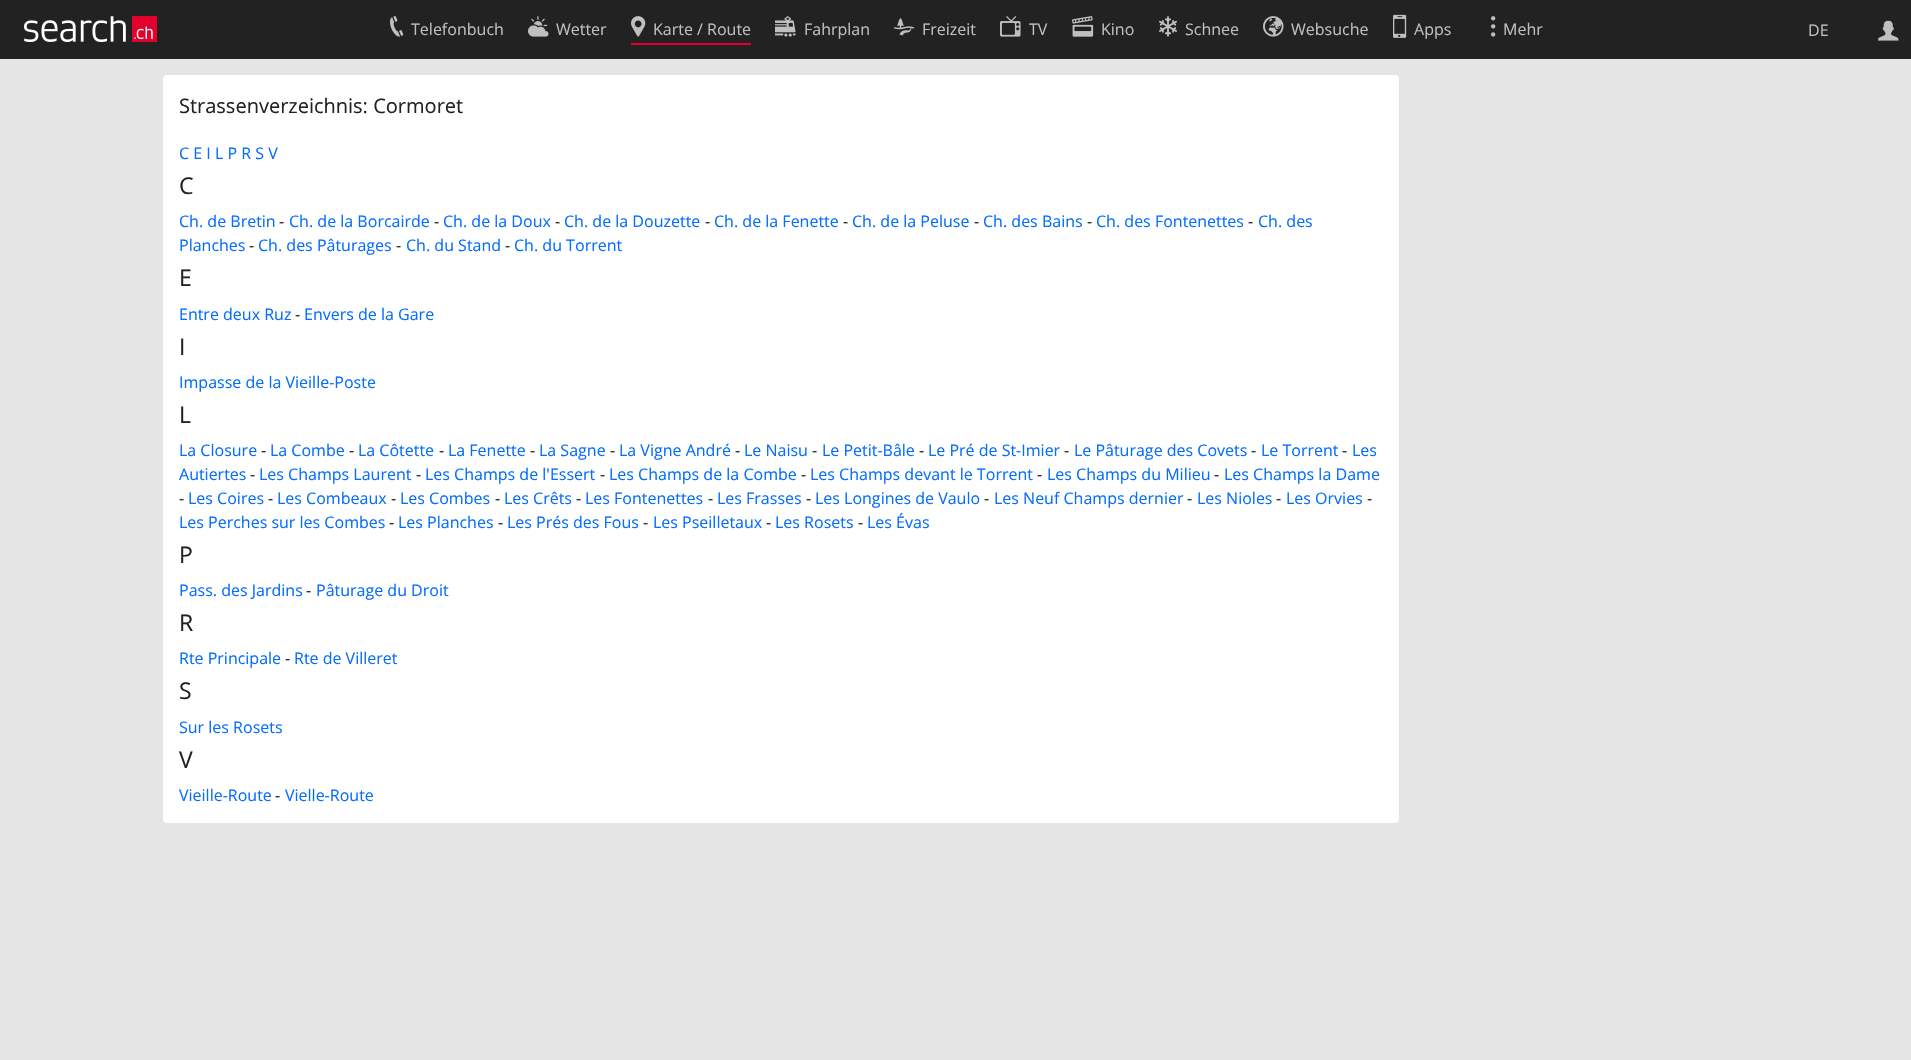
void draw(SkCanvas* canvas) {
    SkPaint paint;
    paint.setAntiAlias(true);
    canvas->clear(0xFFE5E5E5);
    paint.setColor(0xFF222222);
    canvas->drawRect(SkRect::MakeXYWH(0, 0, 1911, 59), paint);
    canvas->drawImageRect(SkImages::DeferredFromEncodedData(SkData::MakeFromFileName("img1.png")), SkRect::MakeXYWH(24, 16, 133, 26), SkSamplingOptions());
    canvas->drawImageRect(SkImages::DeferredFromEncodedData(SkData::MakeFromFileName("img2.png")), SkRect::MakeXYWH(390, 16, 14, 21), SkSamplingOptions());
    SkFont font1(fontMgr->matchFamilyStyle("Open Sans", SkFontStyle::Normal()), 16);
    font1.setSubpixel(true);
    paint.setColor(0xFFBFBFBF);
    canvas->drawString("Telefonbuch", 411, 35, font1, paint);
    canvas->drawImageRect(SkImages::DeferredFromEncodedData(SkData::MakeFromFileName("img3.png")), SkRect::MakeXYWH(528, 16, 21, 21), SkSamplingOptions());
    canvas->drawString("Wetter", 556, 35, font1, paint);
    paint.setColor(0xFFE4002C);
    canvas->drawRect(SkRect::MakeXYWH(631, 43, 120, 2), paint);
    canvas->drawImageRect(SkImages::DeferredFromEncodedData(SkData::MakeFromFileName("img4.png")), SkRect::MakeXYWH(631, 16, 15, 21), SkSamplingOptions());
    paint.setColor(0xFFBFBFBF);
    canvas->drawString("Karte / Route", 653, 35, font1, paint);
    canvas->drawImageRect(SkImages::DeferredFromEncodedData(SkData::MakeFromFileName("img5.png")), SkRect::MakeXYWH(775, 16, 21, 21), SkSamplingOptions());
    canvas->drawString("Fahrplan", 804, 35, font1, paint);
    canvas->drawImageRect(SkImages::DeferredFromEncodedData(SkData::MakeFromFileName("img6.png")), SkRect::MakeXYWH(894, 17, 21, 19), SkSamplingOptions());
    canvas->drawString("Freizeit", 922, 35, font1, paint);
    canvas->drawImageRect(SkImages::DeferredFromEncodedData(SkData::MakeFromFileName("img7.png")), SkRect::MakeXYWH(1000, 16, 21, 21), SkSamplingOptions());
    canvas->drawString("TV", 1029, 35, font1, paint);
    canvas->drawImageRect(SkImages::DeferredFromEncodedData(SkData::MakeFromFileName("img8.png")), SkRect::MakeXYWH(1072, 16, 22, 21), SkSamplingOptions());
    canvas->drawString("Kino", 1101, 35, font1, paint);
    canvas->drawImageRect(SkImages::DeferredFromEncodedData(SkData::MakeFromFileName("img9.png")), SkRect::MakeXYWH(1159, 16, 18, 21), SkSamplingOptions());
    canvas->drawString("Schnee", 1185, 35, font1, paint);
    canvas->drawImageRect(SkImages::DeferredFromEncodedData(SkData::MakeFromFileName("img10.png")), SkRect::MakeXYWH(1263, 16, 21, 21), SkSamplingOptions());
    canvas->drawString("Websuche", 1291, 35, font1, paint);
    canvas->drawImageRect(SkImages::DeferredFromEncodedData(SkData::MakeFromFileName("img11.png")), SkRect::MakeXYWH(1393, 14, 14, 24), SkSamplingOptions());
    canvas->drawString("Apps", 1414, 35, font1, paint);
    canvas->drawImageRect(SkImages::DeferredFromEncodedData(SkData::MakeFromFileName("img12.png")), SkRect::MakeXYWH(1491, 16, 5, 21), SkSamplingOptions());
    canvas->drawString("Mehr", 1503, 35, font1, paint);
    canvas->drawString("DE", 1808, 36, font1, paint);
    canvas->drawImageRect(SkImages::DeferredFromEncodedData(SkData::MakeFromFileName("img13.png")), SkRect::MakeXYWH(1878, 20, 21, 21), SkSamplingOptions());
    paint.setColor(0xFFFFFFFF);
    canvas->drawRoundRect(SkRect::MakeXYWH(163, 75, 1236, 748), 4, 4, paint);
    SkFont font2(fontMgr->matchFamilyStyle("Open Sans", SkFontStyle::Normal()), 20);
    font2.setSubpixel(true);
    paint.setColor(0xFF222222);
    canvas->drawString("Strassenverzeichnis: Cormoret", 179, 113, font2, paint);
    paint.setColor(0xFF056DFF);
    canvas->drawString("C E I L P R S V", 179, 159, font1, paint);
    SkFont font3(fontMgr->matchFamilyStyle("Open Sans", SkFontStyle::Normal()), 23);
    font3.setSubpixel(true);
    paint.setColor(0xFF222222);
    canvas->drawString("C", 179, 194, font3, paint);
    paint.setColor(0xFF056DFF);
    canvas->drawString("Ch. de Bretin", 179, 227, font1, paint);
    paint.setColor(0xFF222222);
    canvas->drawString("-", 279, 227, font1, paint);
    paint.setColor(0xFF056DFF);
    canvas->drawString("Ch. de la Borcairde", 289, 227, font1, paint);
    paint.setColor(0xFF222222);
    canvas->drawString("-", 434, 227, font1, paint);
    paint.setColor(0xFF056DFF);
    canvas->drawString("Ch. de la Doux", 443, 227, font1, paint);
    paint.setColor(0xFF222222);
    canvas->drawString("-", 555, 227, font1, paint);
    paint.setColor(0xFF056DFF);
    canvas->drawString("Ch. de la Douzette", 564, 227, font1, paint);
    paint.setColor(0xFF222222);
    canvas->drawString("-", 705, 227, font1, paint);
    paint.setColor(0xFF056DFF);
    canvas->drawString("Ch. de la Fenette", 714, 227, font1, paint);
    paint.setColor(0xFF222222);
    canvas->drawString("-", 843, 227, font1, paint);
    paint.setColor(0xFF056DFF);
    canvas->drawString("Ch. de la Peluse", 852, 227, font1, paint);
    paint.setColor(0xFF222222);
    canvas->drawString("-", 974, 227, font1, paint);
    paint.setColor(0xFF056DFF);
    canvas->drawString("Ch. des Bains", 983, 227, font1, paint);
    paint.setColor(0xFF222222);
    canvas->drawString("-", 1087, 227, font1, paint);
    paint.setColor(0xFF056DFF);
    canvas->drawString("Ch. des Fontenettes", 1096, 227, font1, paint);
    paint.setColor(0xFF222222);
    canvas->drawString("-", 1248, 227, font1, paint);
    paint.setColor(0xFF056DFF);
    canvas->drawString("Ch. des", 1258, 227, font1, paint);
    canvas->drawString("Planches", 179, 251, font1, paint);
    paint.setColor(0xFF222222);
    canvas->drawString("-", 249, 251, font1, paint);
    paint.setColor(0xFF056DFF);
    canvas->drawString("Ch. des Pâturages", 258, 251, font1, paint);
    paint.setColor(0xFF222222);
    canvas->drawString("-", 396, 251, font1, paint);
    paint.setColor(0xFF056DFF);
    canvas->drawString("Ch. du Stand", 406, 251, font1, paint);
    paint.setColor(0xFF222222);
    canvas->drawString("-", 505, 251, font1, paint);
    paint.setColor(0xFF056DFF);
    canvas->drawString("Ch. du Torrent", 514, 251, font1, paint);
    paint.setColor(0xFF222222);
    canvas->drawString("E", 179, 286, font3, paint);
    paint.setColor(0xFF056DFF);
    canvas->drawString("Entre deux Ruz", 179, 320, font1, paint);
    paint.setColor(0xFF222222);
    canvas->drawString("-", 295, 320, font1, paint);
    paint.setColor(0xFF056DFF);
    canvas->drawString("Envers de la Gare", 304, 320, font1, paint);
    paint.setColor(0xFF222222);
    canvas->drawString("I", 179, 355, font3, paint);
    paint.setColor(0xFF056DFF);
    canvas->drawString("Impasse de la Vieille-Poste", 179, 388, font1, paint);
    paint.setColor(0xFF222222);
    canvas->drawString("L", 179, 423, font3, paint);
    paint.setColor(0xFF056DFF);
    canvas->drawString("La Closure", 179, 456, font1, paint);
    paint.setColor(0xFF222222);
    canvas->drawString("-", 261, 456, font1, paint);
    paint.setColor(0xFF056DFF);
    canvas->drawString("La Combe", 270, 456, font1, paint);
    paint.setColor(0xFF222222);
    canvas->drawString("-", 349, 456, font1, paint);
    paint.setColor(0xFF056DFF);
    canvas->drawString("La Côtette", 358, 456, font1, paint);
    paint.setColor(0xFF222222);
    canvas->drawString("-", 439, 456, font1, paint);
    paint.setColor(0xFF056DFF);
    canvas->drawString("La Fenette", 448, 456, font1, paint);
    paint.setColor(0xFF222222);
    canvas->drawString("-", 530, 456, font1, paint);
    paint.setColor(0xFF056DFF);
    canvas->drawString("La Sagne", 539, 456, font1, paint);
    paint.setColor(0xFF222222);
    canvas->drawString("-", 610, 456, font1, paint);
    paint.setColor(0xFF056DFF);
    canvas->drawString("La Vigne André", 619, 456, font1, paint);
    paint.setColor(0xFF222222);
    canvas->drawString("-", 735, 456, font1, paint);
    paint.setColor(0xFF056DFF);
    canvas->drawString("Le Naisu", 744, 456, font1, paint);
    paint.setColor(0xFF222222);
    canvas->drawString("-", 812, 456, font1, paint);
    paint.setColor(0xFF056DFF);
    canvas->drawString("Le Petit-Bâle", 822, 456, font1, paint);
    paint.setColor(0xFF222222);
    canvas->drawString("-", 919, 456, font1, paint);
    paint.setColor(0xFF056DFF);
    canvas->drawString("Le Pré de St-Imier", 928, 456, font1, paint);
    paint.setColor(0xFF222222);
    canvas->drawString("-", 1064, 456, font1, paint);
    paint.setColor(0xFF056DFF);
    canvas->drawString("Le Pâturage des Covets", 1074, 456, font1, paint);
    paint.setColor(0xFF222222);
    canvas->drawString("-", 1251, 456, font1, paint);
    paint.setColor(0xFF056DFF);
    canvas->drawString("Le Torrent", 1261, 456, font1, paint);
    paint.setColor(0xFF222222);
    canvas->drawString("-", 1342, 456, font1, paint);
    paint.setColor(0xFF056DFF);
    canvas->drawString("Les", 1352, 456, font1, paint);
    canvas->drawString("Autiertes", 179, 480, font1, paint);
    paint.setColor(0xFF222222);
    canvas->drawString("-", 250, 480, font1, paint);
    paint.setColor(0xFF056DFF);
    canvas->drawString("Les Champs Laurent", 259, 480, font1, paint);
    paint.setColor(0xFF222222);
    canvas->drawString("-", 416, 480, font1, paint);
    paint.setColor(0xFF056DFF);
    canvas->drawString("Les Champs de l'Essert", 425, 480, font1, paint);
    paint.setColor(0xFF222222);
    canvas->drawString("-", 600, 480, font1, paint);
    paint.setColor(0xFF056DFF);
    canvas->drawString("Les Champs de la Combe", 609, 480, font1, paint);
    paint.setColor(0xFF222222);
    canvas->drawString("-", 801, 480, font1, paint);
    paint.setColor(0xFF056DFF);
    canvas->drawString("Les Champs devant le Torrent", 810, 480, font1, paint);
    paint.setColor(0xFF222222);
    canvas->drawString("-", 1037, 480, font1, paint);
    paint.setColor(0xFF056DFF);
    canvas->drawString("Les Champs du Milieu", 1047, 480, font1, paint);
    paint.setColor(0xFF222222);
    canvas->drawString("-", 1214, 480, font1, paint);
    paint.setColor(0xFF056DFF);
    canvas->drawString("Les Champs la Dame", 1224, 480, font1, paint);
    paint.setColor(0xFF222222);
    canvas->drawString("-", 179, 504, font1, paint);
    paint.setColor(0xFF056DFF);
    canvas->drawString("Les Coires", 188, 504, font1, paint);
    paint.setColor(0xFF222222);
    canvas->drawString("-", 268, 504, font1, paint);
    paint.setColor(0xFF056DFF);
    canvas->drawString("Les Combeaux", 277, 504, font1, paint);
    paint.setColor(0xFF222222);
    canvas->drawString("-", 391, 504, font1, paint);
    paint.setColor(0xFF056DFF);
    canvas->drawString("Les Combes", 400, 504, font1, paint);
    paint.setColor(0xFF222222);
    canvas->drawString("-", 495, 504, font1, paint);
    paint.setColor(0xFF056DFF);
    canvas->drawString("Les Crêts", 504, 504, font1, paint);
    paint.setColor(0xFF222222);
    canvas->drawString("-", 576, 504, font1, paint);
    paint.setColor(0xFF056DFF);
    canvas->drawString("Les Fontenettes", 585, 504, font1, paint);
    paint.setColor(0xFF222222);
    canvas->drawString("-", 708, 504, font1, paint);
    paint.setColor(0xFF056DFF);
    canvas->drawString("Les Frasses", 717, 504, font1, paint);
    paint.setColor(0xFF222222);
    canvas->drawString("-", 806, 504, font1, paint);
    paint.setColor(0xFF056DFF);
    canvas->drawString("Les Longines de Vaulo", 815, 504, font1, paint);
    paint.setColor(0xFF222222);
    canvas->drawString("-", 984, 504, font1, paint);
    paint.setColor(0xFF056DFF);
    canvas->drawString("Les Neuf Champs dernier", 994, 504, font1, paint);
    paint.setColor(0xFF222222);
    canvas->drawString("-", 1187, 504, font1, paint);
    paint.setColor(0xFF056DFF);
    canvas->drawString("Les Nioles", 1197, 504, font1, paint);
    paint.setColor(0xFF222222);
    canvas->drawString("-", 1276, 504, font1, paint);
    paint.setColor(0xFF056DFF);
    canvas->drawString("Les Orvies", 1286, 504, font1, paint);
    paint.setColor(0xFF222222);
    canvas->drawString("-", 1367, 504, font1, paint);
    paint.setColor(0xFF056DFF);
    canvas->drawString("Les Perches sur les Combes", 179, 528, font1, paint);
    paint.setColor(0xFF222222);
    canvas->drawString("-", 389, 528, font1, paint);
    paint.setColor(0xFF056DFF);
    canvas->drawString("Les Planches", 398, 528, font1, paint);
    paint.setColor(0xFF222222);
    canvas->drawString("-", 498, 528, font1, paint);
    paint.setColor(0xFF056DFF);
    canvas->drawString("Les Prés des Fous", 507, 528, font1, paint);
    paint.setColor(0xFF222222);
    canvas->drawString("-", 643, 528, font1, paint);
    paint.setColor(0xFF056DFF);
    canvas->drawString("Les Pseilletaux", 653, 528, font1, paint);
    paint.setColor(0xFF222222);
    canvas->drawString("-", 766, 528, font1, paint);
    paint.setColor(0xFF056DFF);
    canvas->drawString("Les Rosets", 775, 528, font1, paint);
    paint.setColor(0xFF222222);
    canvas->drawString("-", 858, 528, font1, paint);
    paint.setColor(0xFF056DFF);
    canvas->drawString("Les Évas", 867, 528, font1, paint);
    paint.setColor(0xFF222222);
    canvas->drawString("P", 179, 563, font3, paint);
    paint.setColor(0xFF056DFF);
    canvas->drawString("Pass. des Jardins", 179, 596, font1, paint);
    paint.setColor(0xFF222222);
    canvas->drawString("-", 306, 596, font1, paint);
    paint.setColor(0xFF056DFF);
    canvas->drawString("Pâturage du Droit", 316, 596, font1, paint);
    paint.setColor(0xFF222222);
    canvas->drawString("R", 179, 631, font3, paint);
    paint.setColor(0xFF056DFF);
    canvas->drawString("Rte Principale", 179, 664, font1, paint);
    paint.setColor(0xFF222222);
    canvas->drawString("-", 285, 664, font1, paint);
    paint.setColor(0xFF056DFF);
    canvas->drawString("Rte de Villeret", 294, 664, font1, paint);
    paint.setColor(0xFF222222);
    canvas->drawString("S", 179, 699, font3, paint);
    paint.setColor(0xFF056DFF);
    canvas->drawString("Sur les Rosets", 179, 733, font1, paint);
    paint.setColor(0xFF222222);
    canvas->drawString("V", 179, 768, font3, paint);
    paint.setColor(0xFF056DFF);
    canvas->drawString("Vieille-Route", 179, 801, font1, paint);
    paint.setColor(0xFF222222);
    canvas->drawString("-", 275, 801, font1, paint);
    paint.setColor(0xFF056DFF);
    canvas->drawString("Vielle-Route", 285, 801, font1, paint);
}
